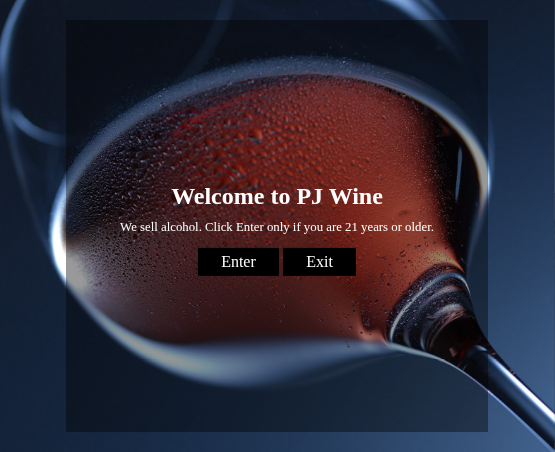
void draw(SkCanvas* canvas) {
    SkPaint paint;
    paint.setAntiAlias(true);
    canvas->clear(0xFFFFFFFF);
    canvas->drawImageRect(SkImages::DeferredFromEncodedData(SkData::MakeFromFileName("img3.png")), SkRect::MakeXYWH(554, 193, 1, 250), SkSamplingOptions());
    canvas->drawImageRect(SkImages::DeferredFromEncodedData(SkData::MakeFromFileName("img1.png")), SkRect::MakeXYWH(0, 0, 555, 452), SkSamplingOptions());
    canvas->drawImageRect(SkImages::DeferredFromEncodedData(SkData::MakeFromFileName("img2.png")), SkRect::MakeXYWH(66, 20, 422, 412), SkSamplingOptions());
}
